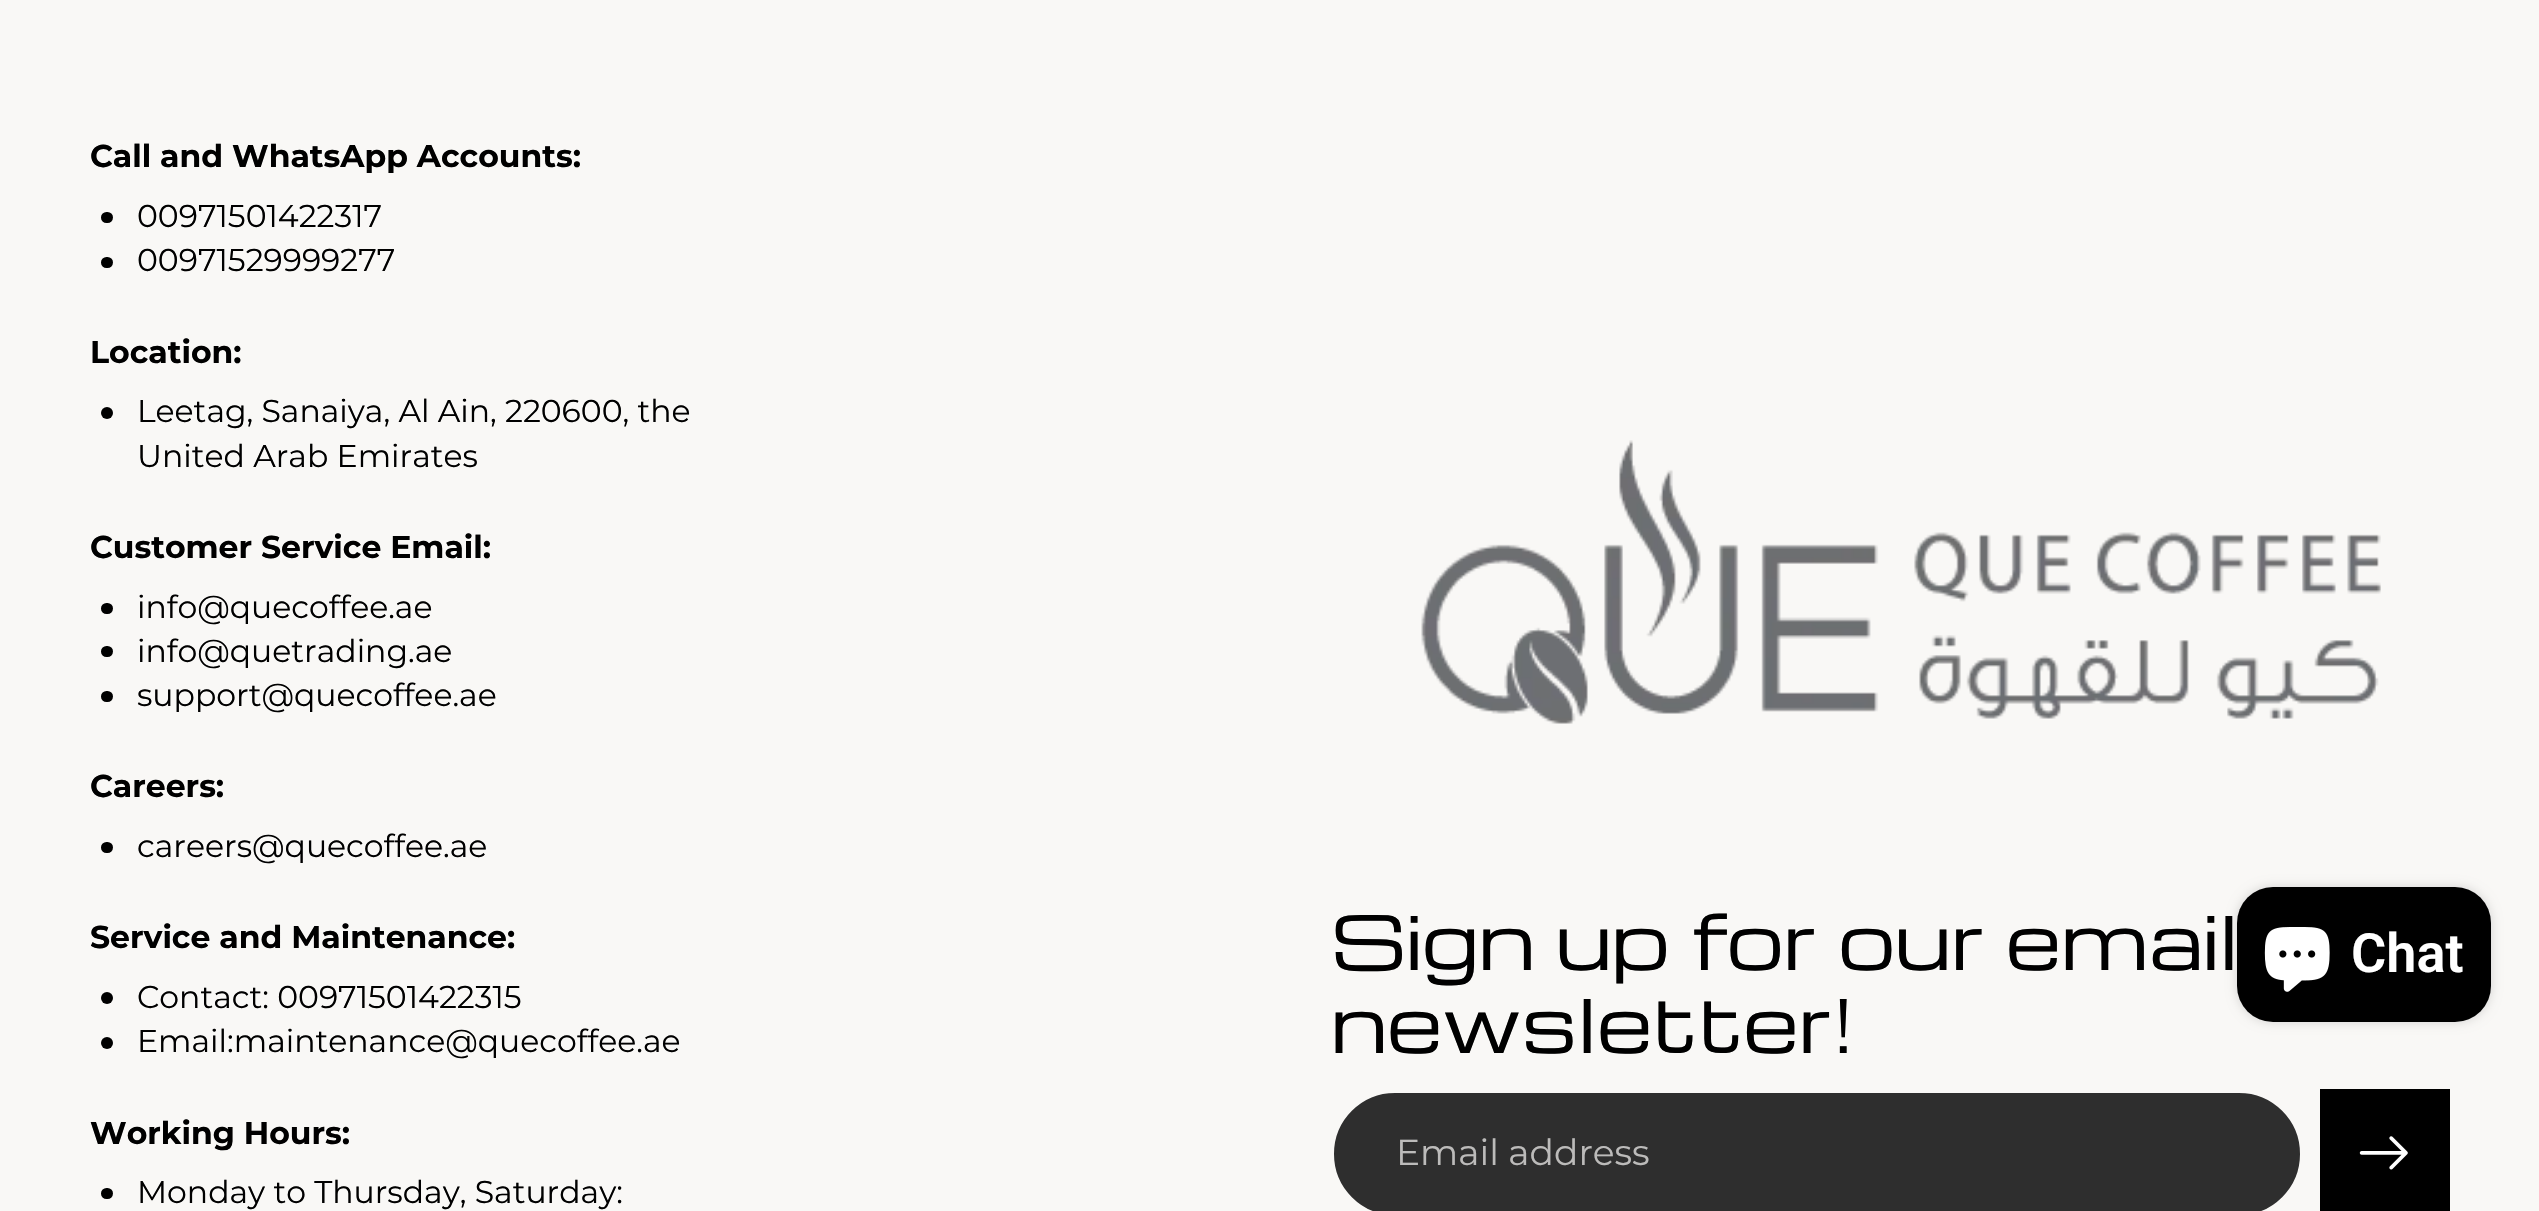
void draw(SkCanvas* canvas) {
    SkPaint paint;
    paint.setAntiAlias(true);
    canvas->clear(0xFFF9F8F6);
    SkFont font1(fontMgr->matchFamilyStyle("Montserrat", SkFontStyle::Bold()), 31.5f);
    font1.setSubpixel(true);
    paint.setColor(0xFF000000);
    canvas->drawString("Call and WhatsApp Accounts:", 90, 167, font1, paint);
    canvas->drawRoundRect(SkRect::MakeXYWH(101, 212, 12, 11), 5.5f, 5.5f, paint);
    SkFont font2(fontMgr->matchFamilyStyle("Montserrat", SkFontStyle::Normal()), 31.5f);
    font2.setSubpixel(true);
    canvas->drawString("00971501422317", 137, 227, font2, paint);
    canvas->drawRoundRect(SkRect::MakeXYWH(101, 257, 12, 11), 5.5f, 5.5f, paint);
    canvas->drawString("00971529999277", 137, 271, font2, paint);
    canvas->drawString("Location:", 90, 363, font1, paint);
    canvas->drawCircle(107, 413, 6, paint);
    canvas->drawString("Leetag, Sanaiya, Al Ain, 220600, the", 137, 422, font2, paint);
    canvas->drawString("United Arab Emirates", 137, 467, font2, paint);
    canvas->drawString("Customer Service Email:", 90, 558, font1, paint);
    canvas->drawRoundRect(SkRect::MakeXYWH(101, 603, 12, 11), 5.5f, 5.5f, paint);
    canvas->drawString("info@quecoffee.ae", 137, 618, font2, paint);
    canvas->drawRoundRect(SkRect::MakeXYWH(101, 646, 12, 11), 5.5f, 5.5f, paint);
    canvas->drawString("info@quetrading.ae", 137, 662, font2, paint);
    canvas->drawRoundRect(SkRect::MakeXYWH(101, 691, 12, 11), 5.5f, 5.5f, paint);
    canvas->drawString("support@quecoffee.ae", 137, 706, font2, paint);
    canvas->drawString("Careers:", 90, 797, font1, paint);
    canvas->drawRoundRect(SkRect::MakeXYWH(101, 842, 12, 11), 5.5f, 5.5f, paint);
    canvas->drawString("careers@quecoffee.ae", 137, 857, font2, paint);
    canvas->drawString("Service and Maintenance:", 90, 948, font1, paint);
    canvas->drawCircle(107, 998, 6, paint);
    canvas->drawString("Contact: 00971501422315", 137, 1008, font2, paint);
    canvas->drawCircle(107, 1043, 6, paint);
    canvas->drawString("Email:maintenance@quecoffee.ae", 137, 1052, font2, paint);
    canvas->drawString("Working Hours:", 90, 1144, font1, paint);
    canvas->drawRoundRect(SkRect::MakeXYWH(101, 1188, 12, 11), 5.5f, 5.5f, paint);
    canvas->drawString("Monday to Thursday, Saturday:", 137, 1203, font2, paint);
    canvas->drawImageRect(SkImages::DeferredFromEncodedData(SkData::MakeFromFileName("img1.png")), SkRect::MakeXYWH(1421, 440, 960, 284), SkSamplingOptions());
    SkFont font3(fontMgr->matchFamilyStyle("Michroma", SkFontStyle::Normal()), 72);
    font3.setSubpixel(true);
    canvas->drawString("Sign up for our email", 1331, 970, font3, paint);
    canvas->drawString("newsletter!", 1331, 1053, font3, paint);
    paint.setColor(0xFF2E2E2E);
    canvas->drawRoundRect(SkRect::MakeXYWH(1333, 1092, 968, 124), 62, 62, paint);
    paint.setStyle(SkPaint::kStroke_Style);
    paint.setStrokeWidth(2);
    paint.setColor(0xFFF9F8F6);
    canvas->drawRoundRect(SkRect::MakeXYWH(1333, 1092, 968, 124), 62, 62, paint);
    SkFont font4(fontMgr->matchFamilyStyle("Montserrat", SkFontStyle::Normal()), 36);
    font4.setSubpixel(true);
    paint.setStyle(SkPaint::kFill_Style);
    paint.setColor(0xFFBCBBBA);
    canvas->drawString("Email address", 1396, 1165, font4, paint);
    paint.setColor(0xFF000000);
    canvas->drawRect(SkRect::MakeXYWH(2320, 1089, 130, 122), paint);
    canvas->drawImageRect(SkImages::DeferredFromEncodedData(SkData::MakeFromFileName("img2.png")), SkRect::MakeXYWH(2359, 1136, 49, 34), SkSamplingOptions());
    paint.setColor(0x26000000);
    paint.setMaskFilter(SkMaskFilter::MakeBlur(kNormal_SkBlurStyle, 5.5f));
    canvas->drawRoundRect(SkRect::MakeXYWH(2237, 887, 254, 135), 36, 36, paint);
    paint.setMaskFilter(nullptr);
    paint.setColor(0xFF000000);
    canvas->drawRoundRect(SkRect::MakeXYWH(2237, 887, 254, 135), 36, 36, paint);
    canvas->drawImageRect(SkImages::DeferredFromEncodedData(SkData::MakeFromFileName("img3.png")), SkRect::MakeXYWH(2264, 927, 66, 65), SkSamplingOptions());
    SkFont font5(fontMgr->matchFamilyStyle("Roboto", SkFontStyle(600, SkFontStyle::kNormal_Width, SkFontStyle::kUpright_Slant)), 54);
    font5.setSubpixel(true);
    paint.setColor(0xFFFFFFFF);
    canvas->drawString("Chat", 2351, 972, font5, paint);
}
